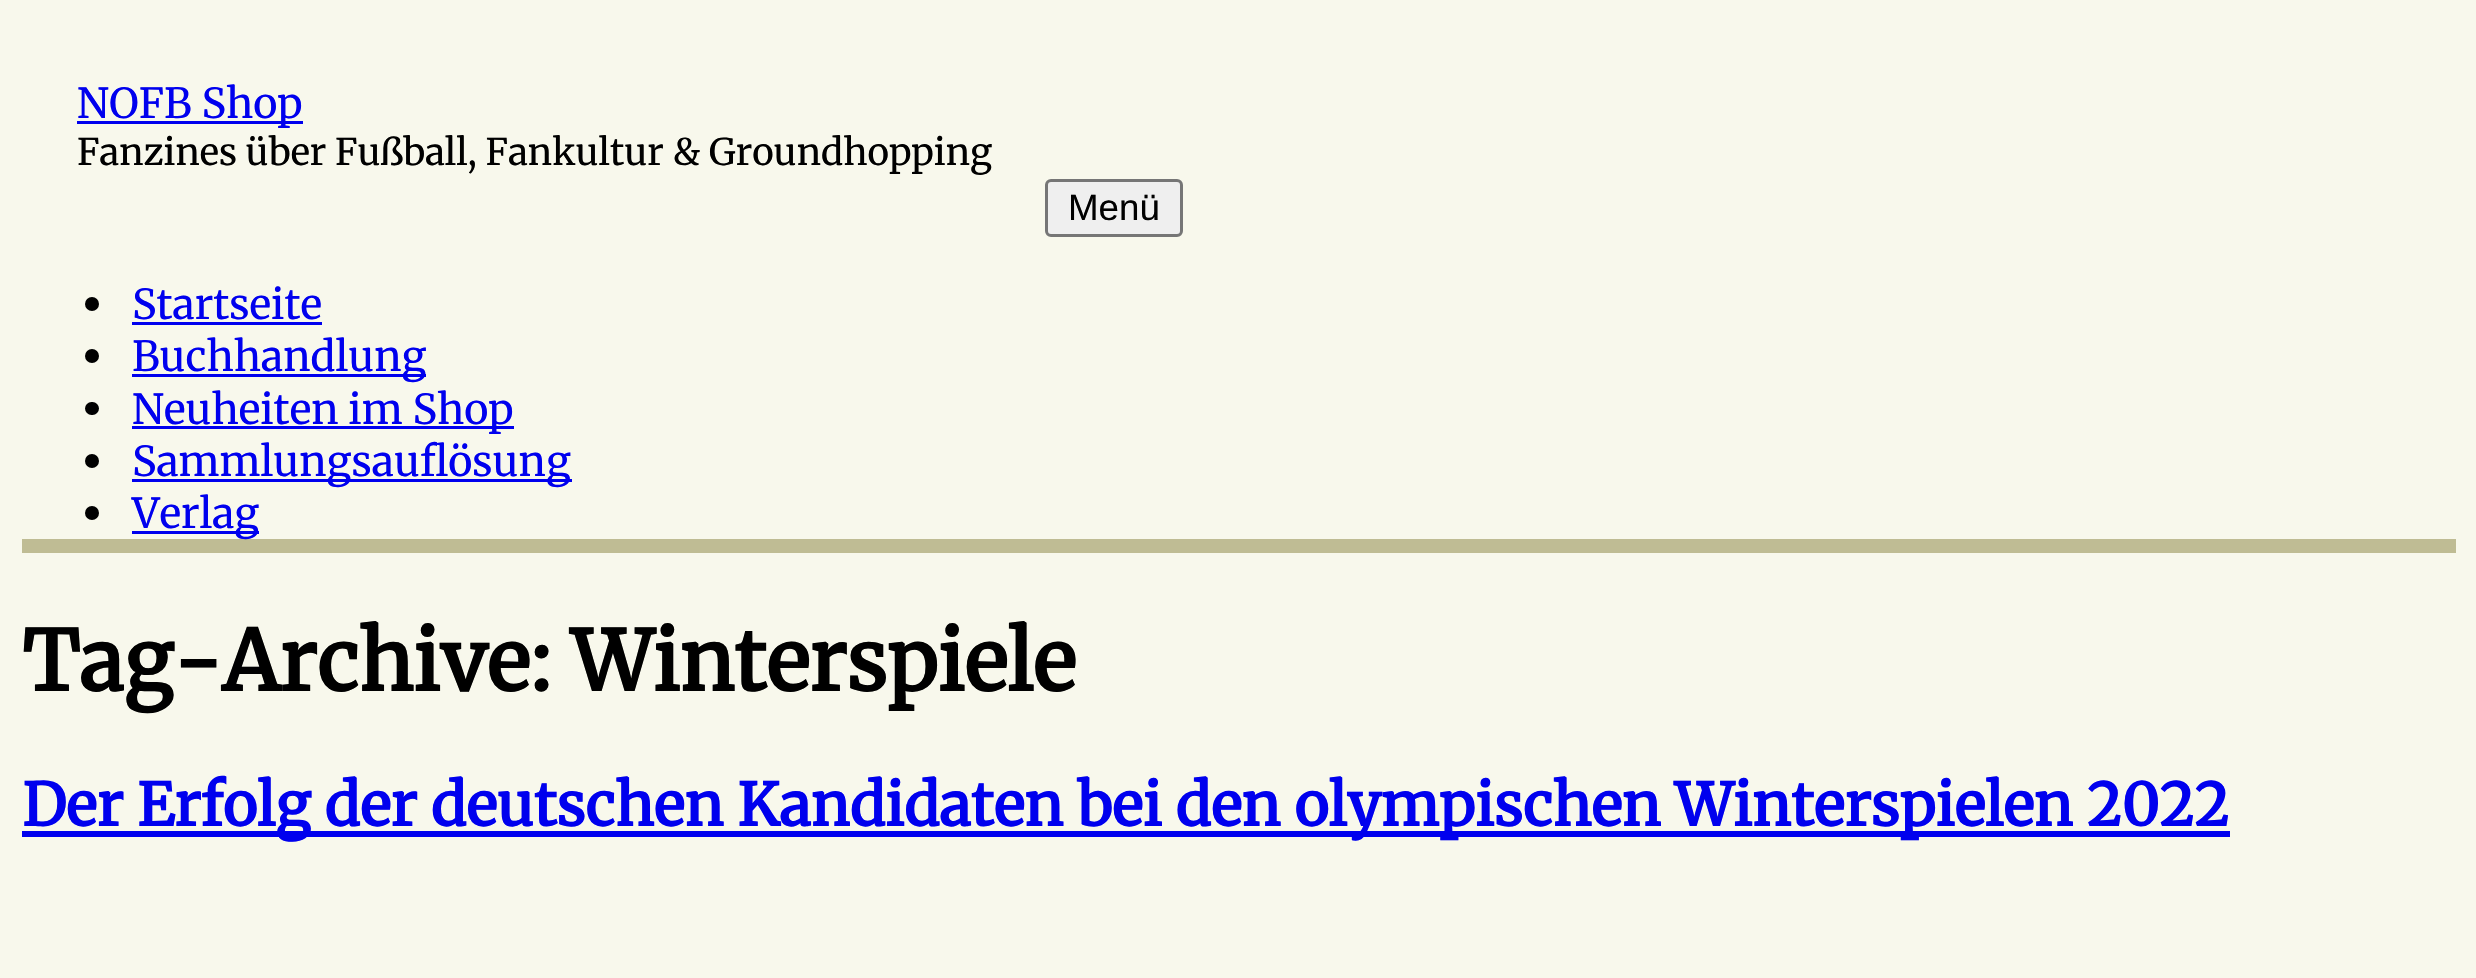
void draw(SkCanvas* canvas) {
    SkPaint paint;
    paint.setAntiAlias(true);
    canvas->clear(0xFFF8F8EC);
    paint.setColor(0xFF0000EE);
    canvas->drawRect(SkRect::MakeXYWH(77, 121, 226, 3), paint);
    SkFont font1(fontMgr->matchFamilyStyle("Merriweather", SkFontStyle(300, SkFontStyle::kNormal_Width, SkFontStyle::kUpright_Slant)), 41.25f);
    font1.setSubpixel(true);
    canvas->drawString("NOFB Shop", 77, 118, font1, paint);
    SkFont font2(fontMgr->matchFamilyStyle("Merriweather", SkFontStyle(300, SkFontStyle::kNormal_Width, SkFontStyle::kUpright_Slant)), 36.7f);
    font2.setSubpixel(true);
    paint.setColor(0xFF000000);
    canvas->drawString("Fanzines über Fußball, Fankultur & Groundhopping", 77, 165, font2, paint);
    paint.setColor(0xFFEFEFEF);
    canvas->drawRoundRect(SkRect::MakeXYWH(1046.5f, 180.5f, 135, 55), 4.5f, 4.5f, paint);
    paint.setStyle(SkPaint::kStroke_Style);
    paint.setStrokeWidth(3);
    paint.setColor(0xFF767676);
    canvas->drawRoundRect(SkRect::MakeXYWH(1046.5f, 180.5f, 135, 55), 4.5f, 4.5f, paint);
    SkFont font3(fontMgr->matchFamilyStyle("Liberation Sans", SkFontStyle::Normal()), 36.7f);
    font3.setSubpixel(true);
    paint.setStyle(SkPaint::kFill_Style);
    paint.setColor(0xFF000000);
    canvas->drawString("Menü", 1068, 220, font3, paint);
    paint.setColor(0xFFBFBC94);
    canvas->drawRect(SkRect::MakeXYWH(22, 539, 2434, 14), paint);
    paint.setColor(0xFF000000);
    canvas->drawCircle(92, 304, 7, paint);
    paint.setColor(0xFF0000EE);
    canvas->drawString("Startseite", 132, 319, font1, paint);
    canvas->drawRect(SkRect::MakeXYWH(132, 322, 190, 3), paint);
    paint.setColor(0xFF000000);
    canvas->drawCircle(92, 356, 7, paint);
    paint.setColor(0xFF0000EE);
    canvas->drawRect(SkRect::MakeXYWH(132, 374, 294, 3), paint);
    canvas->drawString("Buchhandlung", 132, 371, font1, paint);
    paint.setColor(0xFF000000);
    canvas->drawRoundRect(SkRect::MakeXYWH(85, 402, 14, 13), 6.5f, 6.5f, paint);
    paint.setColor(0xFF0000EE);
    canvas->drawRect(SkRect::MakeXYWH(132, 426, 382, 3), paint);
    canvas->drawString("Neuheiten im Shop", 132, 424, font1, paint);
    paint.setColor(0xFF000000);
    canvas->drawCircle(92, 461, 7, paint);
    paint.setColor(0xFF0000EE);
    canvas->drawRect(SkRect::MakeXYWH(132, 479, 440, 3), paint);
    canvas->drawString("Sammlungsauflösung", 132, 476, font1, paint);
    paint.setColor(0xFF000000);
    canvas->drawCircle(92, 513, 7, paint);
    paint.setColor(0xFF0000EE);
    canvas->drawRect(SkRect::MakeXYWH(132, 531, 127, 3), paint);
    canvas->drawString("Verlag", 132, 528, font1, paint);
    SkFont font4(fontMgr->matchFamilyStyle("Merriweather", SkFontStyle::Bold()), 82.5f);
    font4.setSubpixel(true);
    paint.setColor(0xFF000000);
    canvas->drawString("Tag-Archive: Winterspiele", 22, 691, font4, paint);
    paint.setColor(0xFF0000EE);
    canvas->drawRect(SkRect::MakeXYWH(22, 831, 2208, 6), paint);
    SkFont font5(fontMgr->matchFamilyStyle("Merriweather", SkFontStyle::Bold()), 58.65f);
    font5.setSubpixel(true);
    canvas->drawString("Der Erfolg der deutschen Kandidaten bei den olympischen Winterspielen 2022", 22, 826, font5, paint);
}
